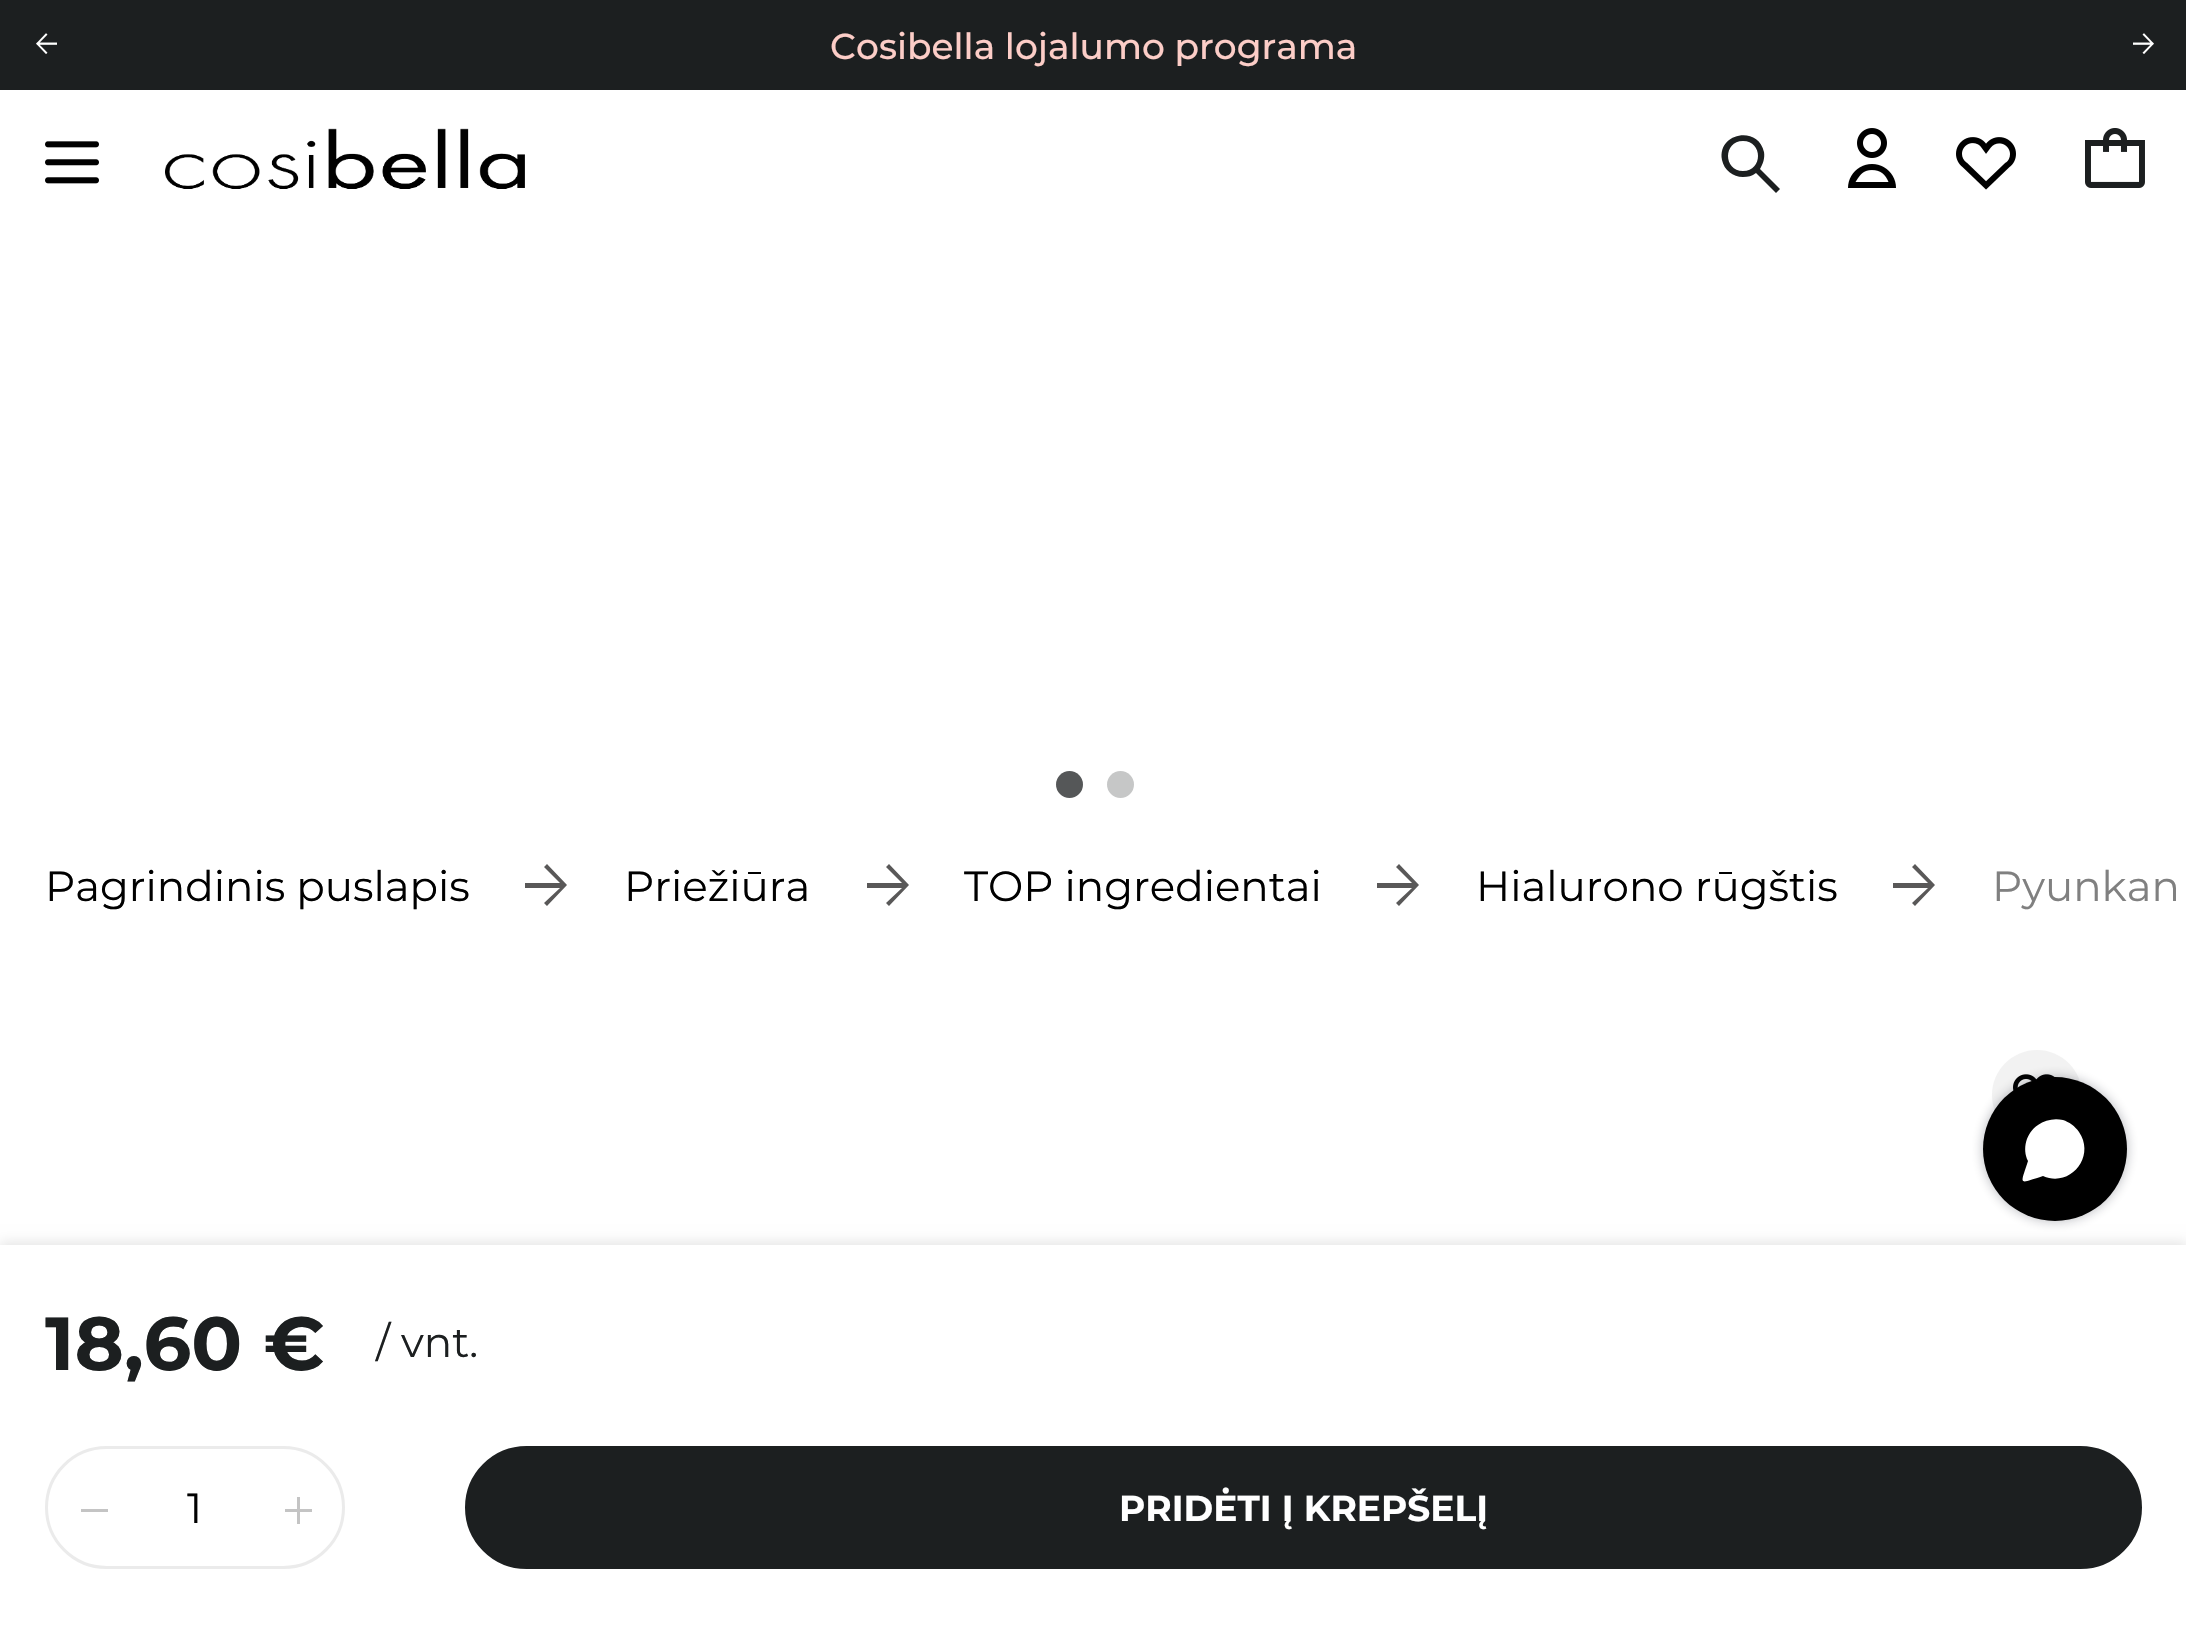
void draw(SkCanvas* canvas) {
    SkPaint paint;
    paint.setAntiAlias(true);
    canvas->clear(0xFFFFFFFF);
    paint.setColor(0xFF1C1F20);
    canvas->drawRect(SkRect::MakeXYWH(0, 0, 2186, 90), paint);
    canvas->drawImageRect(SkImages::DeferredFromEncodedData(SkData::MakeFromFileName("img1.png")), SkRect::MakeXYWH(36, 33, 21, 21), SkSamplingOptions());
    SkFont font1(fontMgr->matchFamilyStyle("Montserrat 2", SkFontStyle(100, SkFontStyle::kNormal_Width, SkFontStyle::kUpright_Slant)), 36);
    font1.setSubpixel(true);
    paint.setColor(0xFFFCCDC7);
    canvas->drawString("Cosibella lojalumo programa", 830, 59, font1, paint);
    canvas->drawImageRect(SkImages::DeferredFromEncodedData(SkData::MakeFromFileName("img2.png")), SkRect::MakeXYWH(2133, 33, 21, 21), SkSamplingOptions());
    canvas->drawImageRect(SkImages::DeferredFromEncodedData(SkData::MakeFromFileName("img3.png")), SkRect::MakeXYWH(45, 141, 54, 43), SkSamplingOptions());
    canvas->drawImageRect(SkImages::DeferredFromEncodedData(SkData::MakeFromFileName("img4.png")), SkRect::MakeXYWH(165, 128, 360, 61), SkSamplingOptions());
    paint.setColor(0xFF1C1F20);
    canvas->drawPath(SkPathBuilder().moveTo(1743, 177).cubicTo(1748, 177, 1752, 176, 1756, 173).lineTo(1776, 193).lineTo(1780, 189).lineTo(1760, 169).cubicTo(1763, 164, 1765, 158, 1764, 152).cubicTo(1758, 125, 1717, 133, 1722, 160).cubicTo(1724, 170, 1733, 177, 1743, 177).close().moveTo(1743, 141).cubicTo(1763, 141, 1763, 171, 1743, 171).cubicTo(1723, 171, 1723, 141, 1743, 141).close().detach(), paint);
    canvas->drawImageRect(SkImages::DeferredFromEncodedData(SkData::MakeFromFileName("img5.png")), SkRect::MakeXYWH(1848, 128, 48, 60), SkSamplingOptions());
    canvas->drawImageRect(SkImages::DeferredFromEncodedData(SkData::MakeFromFileName("img6.png")), SkRect::MakeXYWH(1956, 137, 60, 53), SkSamplingOptions());
    canvas->drawImageRect(SkImages::DeferredFromEncodedData(SkData::MakeFromFileName("img7.png")), SkRect::MakeXYWH(2085, 128, 60, 60), SkSamplingOptions());
    paint.setColor(0xFF555758);
    canvas->drawCircle(1069.5f, 784.5f, 13.5f, paint);
    paint.setColor(0xFFC6C7C7);
    canvas->drawCircle(1120.5f, 784.5f, 13.5f, paint);
    SkFont font2(fontMgr->matchFamilyStyle("Montserrat", SkFontStyle(100, SkFontStyle::kNormal_Width, SkFontStyle::kUpright_Slant)), 42);
    font2.setSubpixel(true);
    paint.setColor(0xFF000000);
    canvas->drawString("Pagrindinis puslapis", 45, 901, font2, paint);
    paint.setColor(0xFF595858);
    canvas->drawPath(SkPathBuilder().moveTo(567, 885).lineTo(547, 864).lineTo(544, 867).lineTo(560, 883).lineTo(525, 883).lineTo(525, 888).lineTo(560, 888).lineTo(544, 903).lineTo(547, 906).close().detach(), paint);
    paint.setColor(0xFF000000);
    canvas->drawString("Priežiūra", 624, 901, font2, paint);
    paint.setColor(0xFF595858);
    canvas->drawPath(SkPathBuilder().moveTo(909, 885).lineTo(889, 864).lineTo(886, 867).lineTo(902, 883).lineTo(867, 883).lineTo(867, 888).lineTo(902, 888).lineTo(886, 903).lineTo(889, 906).close().detach(), paint);
    paint.setColor(0xFF000000);
    canvas->drawString("TOP ingredientai", 964, 901, font2, paint);
    paint.setColor(0xFF595858);
    canvas->drawPath(SkPathBuilder().moveTo(1419, 885).lineTo(1399, 864).lineTo(1396, 867).lineTo(1412, 883).lineTo(1377, 883).lineTo(1377, 888).lineTo(1412, 888).lineTo(1396, 903).lineTo(1399, 906).close().detach(), paint);
    paint.setColor(0xFF000000);
    canvas->drawString("Hialurono rūgštis", 1476, 901, font2, paint);
    paint.setColor(0xFF595858);
    canvas->drawPath(SkPathBuilder().moveTo(1935, 885).lineTo(1915, 864).lineTo(1912, 867).lineTo(1928, 883).lineTo(1893, 883).lineTo(1893, 888).lineTo(1928, 888).lineTo(1912, 903).lineTo(1915, 906).close().detach(), paint);
    paint.setColor(0xFF808080);
    canvas->drawString("Pyunkan", 1992, 901, font2, paint);
    paint.setColor(0xFFF2F2F2);
    canvas->drawCircle(2037, 1095, 45, paint);
    canvas->drawImageRect(SkImages::DeferredFromEncodedData(SkData::MakeFromFileName("img8.png")), SkRect::MakeXYWH(2013, 1074, 42, 17), SkSamplingOptions());
    paint.setColor(0x1A000000);
    paint.setMaskFilter(SkMaskFilter::MakeBlur(kNormal_SkBlurStyle, 6));
    canvas->drawRect(SkRect::MakeXYWH(0, 1242, 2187, 384), paint);
    paint.setMaskFilter(nullptr);
    paint.setColor(0xFFFFFFFF);
    canvas->drawRect(SkRect::MakeXYWH(0, 1245, 2186, 383), paint);
    SkFont font3(fontMgr->matchFamilyStyle("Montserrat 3", SkFontStyle(100, SkFontStyle::kNormal_Width, SkFontStyle::kUpright_Slant)), 75);
    font3.setSubpixel(true);
    paint.setColor(0xFF1C1F20);
    canvas->drawString("18,60 €", 45, 1370, font3, paint);
    canvas->drawString("/ vnt.", 376, 1357, font2, paint);
    paint.setStyle(SkPaint::kStroke_Style);
    paint.setStrokeWidth(3);
    paint.setColor(0xFFEBEBEB);
    canvas->drawRoundRect(SkRect::MakeXYWH(46.5f, 1447.5f, 297, 120), 60, 60, paint);
    paint.setStyle(SkPaint::kFill_Style);
    paint.setColor(0xFFC4C4C4);
    canvas->drawRect(SkRect::MakeXYWH(81, 1509, 27, 3), paint);
    paint.setColor(0xFF000000);
    canvas->drawString("1", 187, 1523, font2, paint);
    paint.setColor(0xFFC4C4C4);
    canvas->drawRect(SkRect::MakeXYWH(297, 1497, 3, 27), paint);
    canvas->drawRect(SkRect::MakeXYWH(285, 1509, 27, 3), paint);
    paint.setColor(0xFF1C1F20);
    canvas->drawRoundRect(SkRect::MakeXYWH(466.5f, 1447.5f, 1674, 120), 60, 60, paint);
    paint.setStyle(SkPaint::kStroke_Style);
    canvas->drawRoundRect(SkRect::MakeXYWH(466.5f, 1447.5f, 1674, 120), 60, 60, paint);
    SkFont font4(fontMgr->matchFamilyStyle("Montserrat 3", SkFontStyle(100, SkFontStyle::kNormal_Width, SkFontStyle::kUpright_Slant)), 36);
    font4.setSubpixel(true);
    paint.setStyle(SkPaint::kFill_Style);
    paint.setColor(0xFFFFFFFF);
    canvas->drawString("PRIDĖTI Į KREPŠELĮ", 1119, 1521, font4, paint);
    paint.setColor(0x4D111326);
    paint.setMaskFilter(SkMaskFilter::MakeBlur(kNormal_SkBlurStyle, 6));
    canvas->drawRoundRect(SkRect::MakeXYWH(1983, 1077, 144, 144), 72, 72, paint);
    paint.setMaskFilter(nullptr);
    paint.setColor(0xFF000000);
    canvas->drawCircle(2055, 1149, 72, paint);
    paint.setColor(0xFFFFFFFF);
    canvas->drawPath(SkPathBuilder().moveTo(2038, 1125).cubicTo(2045, 1120, 2054, 1118, 2063, 1120).cubicTo(2069, 1122, 2075, 1126, 2079, 1132).cubicTo(2096, 1157, 2070, 1188, 2043, 1176).cubicTo(2018, 1184, 2020, 1186, 2028, 1161).cubicTo(2022, 1149, 2026, 1133, 2038, 1125).close().detach(), paint);
}
